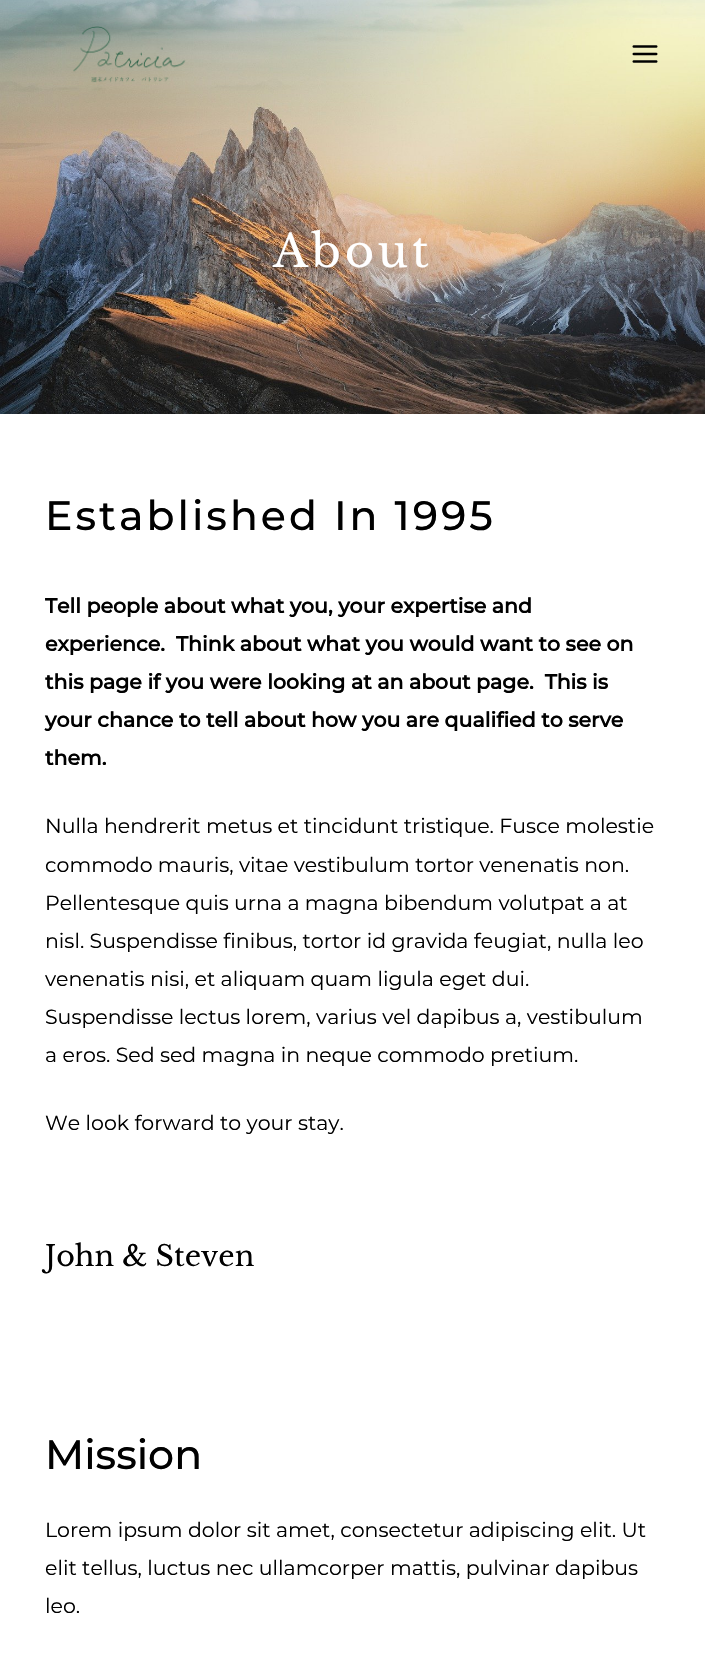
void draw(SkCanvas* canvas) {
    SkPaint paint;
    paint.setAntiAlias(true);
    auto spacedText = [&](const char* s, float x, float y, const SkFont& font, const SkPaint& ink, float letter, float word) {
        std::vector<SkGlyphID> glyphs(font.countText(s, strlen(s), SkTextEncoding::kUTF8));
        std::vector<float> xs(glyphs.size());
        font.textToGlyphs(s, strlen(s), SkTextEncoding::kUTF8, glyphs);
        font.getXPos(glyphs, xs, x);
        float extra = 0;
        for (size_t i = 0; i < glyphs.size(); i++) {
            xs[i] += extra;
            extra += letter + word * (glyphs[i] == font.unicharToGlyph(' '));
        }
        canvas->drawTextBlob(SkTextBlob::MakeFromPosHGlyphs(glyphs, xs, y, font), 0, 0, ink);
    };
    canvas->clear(0xFFFFFFFF);
    canvas->drawImageRect(SkImages::DeferredFromEncodedData(SkData::MakeFromFileName("img3.png")), SkRect::MakeXYWH(0, 0, 705, 414), SkSamplingOptions());
    canvas->drawImageRect(SkImages::DeferredFromEncodedData(SkData::MakeFromFileName("img1.png")), SkRect::MakeXYWH(73, 26, 113, 57), SkSamplingOptions());
    canvas->drawImageRect(SkImages::DeferredFromEncodedData(SkData::MakeFromFileName("img2.png")), SkRect::MakeXYWH(632, 45, 26, 18), SkSamplingOptions());
    SkFont font1(fontMgr->matchFamilyStyle("Libre Baskerville", SkFontStyle::Normal()), 45);
    font1.setSubpixel(true);
    paint.setColor(0xFFFFFFFF);
    spacedText("About", 273, 267, font1, paint, 3.75f, 0);
    SkFont font2(fontMgr->matchFamilyStyle("Montserrat", SkFontStyle(500, SkFontStyle::kNormal_Width, SkFontStyle::kUpright_Slant)), 41);
    font2.setSubpixel(true);
    paint.setColor(0xFF000000);
    spacedText("Established In 1995", 45, 530, font2, paint, 3, 0);
    SkFont font3(fontMgr->matchFamilyStyle("Montserrat", SkFontStyle::Bold()), 20.5f);
    font3.setSubpixel(true);
    canvas->drawString("Tell people about what you, your expertise and", 45, 613, font3, paint);
    canvas->drawString("experience.  Think about what you would want to see on", 45, 651, font3, paint);
    canvas->drawString("this page if you were looking at an about page.  This is", 45, 689, font3, paint);
    canvas->drawString("your chance to tell about how you are qualified to serve", 45, 727, font3, paint);
    canvas->drawString("them.", 45, 765, font3, paint);
    SkFont font4(fontMgr->matchFamilyStyle("Montserrat", SkFontStyle::Normal()), 20.5f);
    font4.setSubpixel(true);
    canvas->drawString("Nulla hendrerit metus et tincidunt tristique. Fusce molestie", 45, 833, font4, paint);
    canvas->drawString("commodo mauris, vitae vestibulum tortor venenatis non.", 45, 872, font4, paint);
    canvas->drawString("Pellentesque quis urna a magna bibendum volutpat a at", 45, 910, font4, paint);
    canvas->drawString("nisl. Suspendisse finibus, tortor id gravida feugiat, nulla leo", 45, 948, font4, paint);
    canvas->drawString("venenatis nisi, et aliquam quam ligula eget dui.", 45, 986, font4, paint);
    canvas->drawString("Suspendisse lectus lorem, varius vel dapibus a, vestibulum", 45, 1024, font4, paint);
    canvas->drawString("a eros. Sed sed magna in neque commodo pretium.", 45, 1062, font4, paint);
    canvas->drawString("We look forward to your stay.", 45, 1130, font4, paint);
    SkFont font5(fontMgr->matchFamilyStyle("Libre Baskerville", SkFontStyle::Normal()), 28.5f);
    font5.setSubpixel(true);
    canvas->drawString("John & Steven", 45, 1266, font5, paint);
    canvas->drawString("Mission", 45, 1469, font2, paint);
    canvas->drawString("Lorem ipsum dolor sit amet, consectetur adipiscing elit. Ut", 45, 1537, font4, paint);
    canvas->drawString("elit tellus, luctus nec ullamcorper mattis, pulvinar dapibus", 45, 1575, font4, paint);
    canvas->drawString("leo.", 45, 1613, font4, paint);
}
